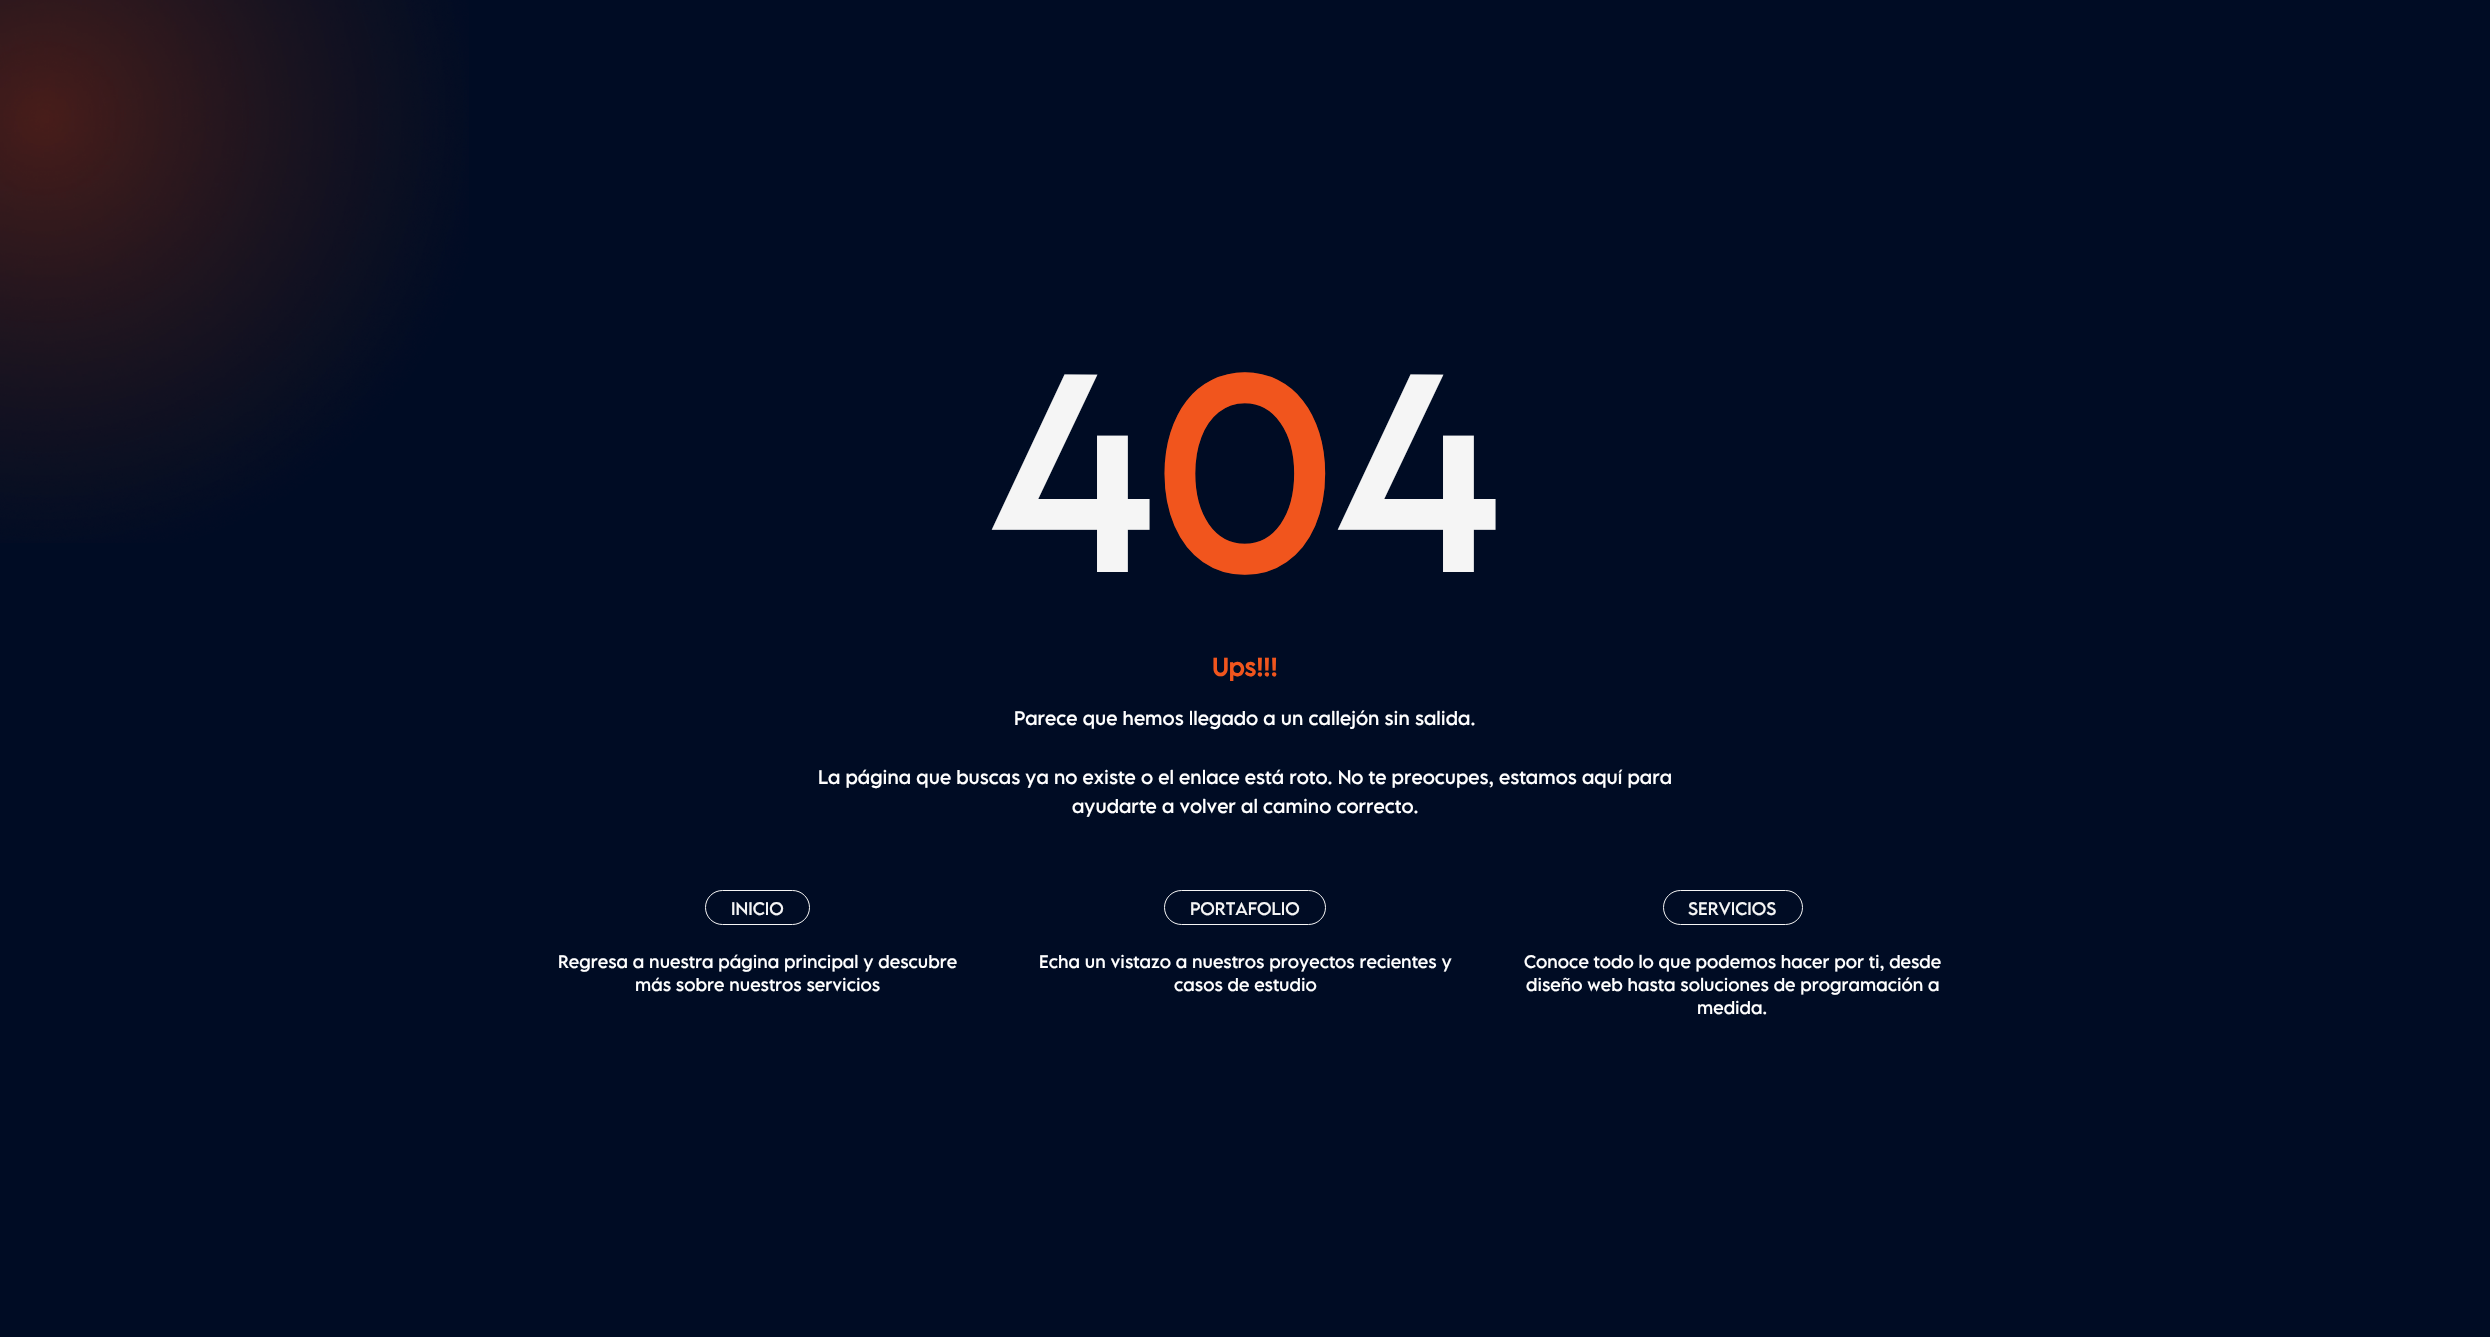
void draw(SkCanvas* canvas) {
    SkPaint paint;
    paint.setAntiAlias(true);
    canvas->clear(0xFF000C24);
    canvas->drawImageRect(SkImages::DeferredFromEncodedData(SkData::MakeFromFileName("img1.png")), SkRect::MakeXYWH(0, 0, 469, 543), SkSamplingOptions());
    SkFont font1(fontMgr->matchFamilyStyle("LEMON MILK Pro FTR", SkFontStyle::Normal()), 250);
    font1.setSubpixel(true);
    paint.setColor(0xFFF5F5F5);
    canvas->drawString("4", 989, 572, font1, paint);
    paint.setColor(0xFFF1551D);
    canvas->drawString("0", 1155, 572, font1, paint);
    paint.setColor(0xFFF5F5F5);
    canvas->drawString("4", 1335, 572, font1, paint);
    SkFont font2(fontMgr->matchFamilyStyle("LEMON MILK Pro FTR", SkFontStyle::Bold()), 22.5f);
    font2.setSubpixel(true);
    paint.setColor(0xFFF1551D);
    canvas->drawString("Ups!!!", 1212, 676, font2, paint);
    SkFont font3(fontMgr->matchFamilyStyle("LEMON MILK Pro FTR", SkFontStyle::Normal()), 17.5f);
    font3.setSubpixel(true);
    paint.setColor(0xFFFFFFFF);
    canvas->drawString("Parece que hemos llegado a un callejón sin salida.", 1014, 725, font3, paint);
    canvas->drawString("La página que buscas ya no existe o el enlace está roto. No te preocupes, estamos aquí para", 818, 784, font3, paint);
    canvas->drawString("ayudarte a volver al camino correcto.", 1072, 813, font3, paint);
    paint.setStyle(SkPaint::kStroke_Style);
    paint.setStrokeWidth(1);
    paint.setColor(0xFFF5F5F5);
    canvas->drawRoundRect(SkRect::MakeXYWH(705.5f, 890.5f, 104, 34), 17, 17, paint);
    SkFont font4(fontMgr->matchFamilyStyle("LEMON MILK Pro FTR", SkFontStyle::Normal()), 16.25f);
    font4.setSubpixel(true);
    paint.setStyle(SkPaint::kFill_Style);
    canvas->drawString("INICIO", 731, 915, font4, paint);
    paint.setColor(0xFFFFFFFF);
    canvas->drawString("Regresa a nuestra página principal y descubre", 558, 968, font4, paint);
    canvas->drawString("más sobre nuestros servicios", 635, 991, font4, paint);
    paint.setStyle(SkPaint::kStroke_Style);
    paint.setColor(0xFFF5F5F5);
    canvas->drawRoundRect(SkRect::MakeXYWH(1164.5f, 890.5f, 161, 34), 17, 17, paint);
    paint.setStyle(SkPaint::kFill_Style);
    canvas->drawString("PORTAFOLIO", 1190, 915, font4, paint);
    paint.setColor(0xFFFFFFFF);
    canvas->drawString("Echa un vistazo a nuestros proyectos recientes y", 1039, 968, font4, paint);
    canvas->drawString("casos de estudio", 1174, 991, font4, paint);
    paint.setStyle(SkPaint::kStroke_Style);
    paint.setColor(0xFFF5F5F5);
    canvas->drawRoundRect(SkRect::MakeXYWH(1663.5f, 890.5f, 139, 34), 17, 17, paint);
    paint.setStyle(SkPaint::kFill_Style);
    canvas->drawString("SERVICIOS", 1688, 915, font4, paint);
    paint.setColor(0xFFFFFFFF);
    canvas->drawString("Conoce todo lo que podemos hacer por ti, desde", 1524, 968, font4, paint);
    canvas->drawString("diseño web hasta soluciones de programación a", 1526, 991, font4, paint);
    canvas->drawString("medida.", 1697, 1014, font4, paint);
}
